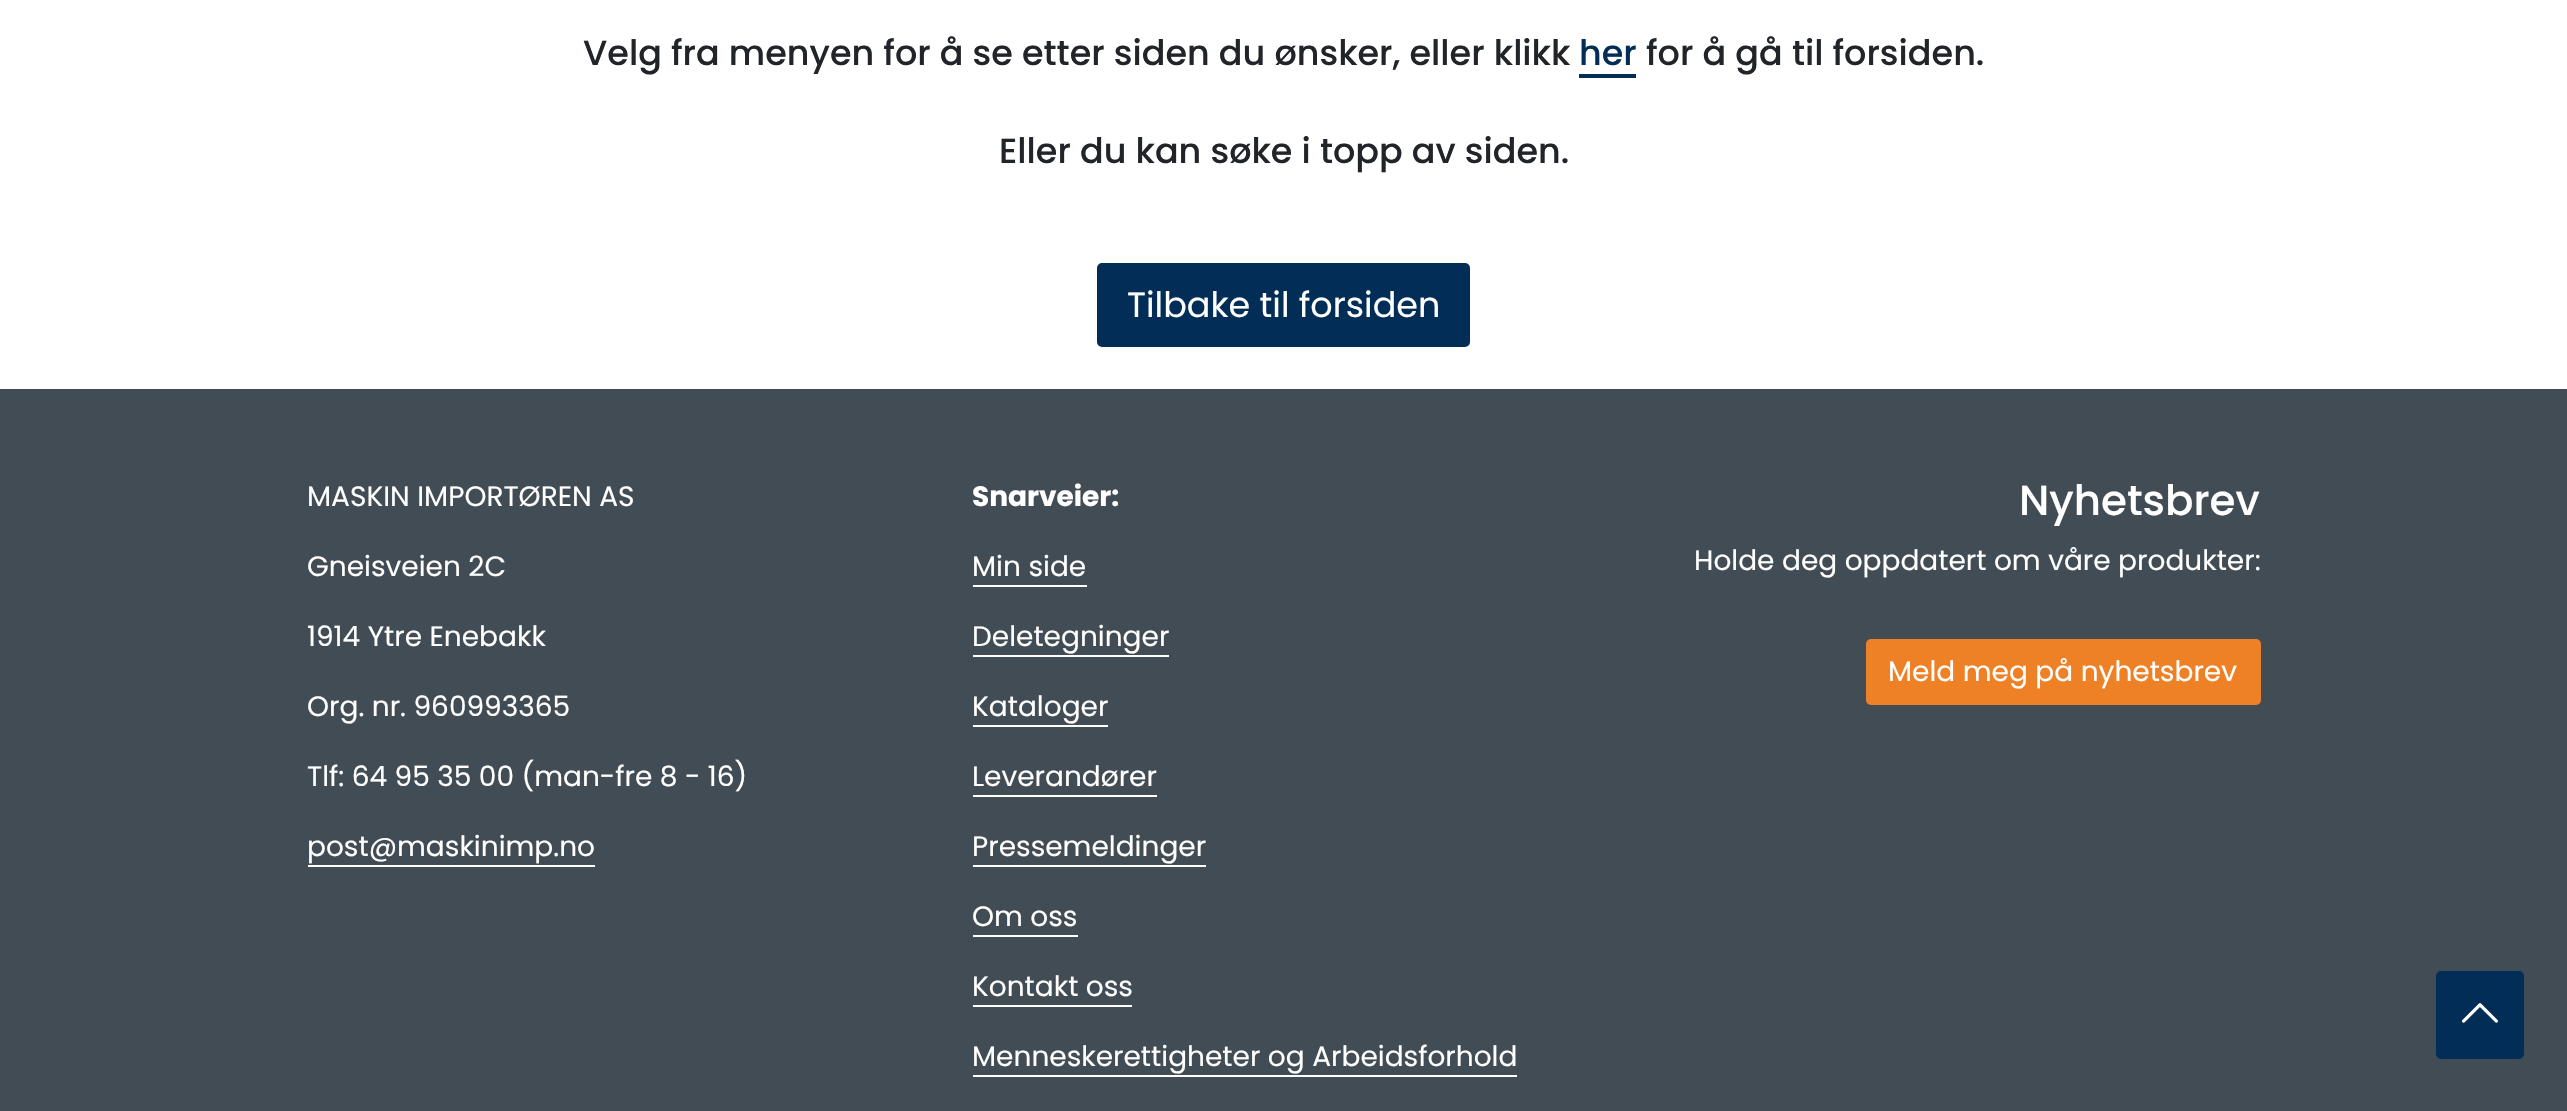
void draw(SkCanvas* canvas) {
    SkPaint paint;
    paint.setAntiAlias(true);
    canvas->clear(0xFFFFFFFF);
    SkFont font1(fontMgr->matchFamilyStyle("Poppins", SkFontStyle(500, SkFontStyle::kNormal_Width, SkFontStyle::kUpright_Slant)), 35);
    font1.setSubpixel(true);
    paint.setColor(0xFF212529);
    canvas->drawString("Velg fra menyen for å se etter siden du ønsker, eller klikk", 583, 65, font1, paint);
    paint.setColor(0xFF012D56);
    canvas->drawString("her", 1579, 65, font1, paint);
    canvas->drawRect(SkRect::MakeXYWH(1579, 74, 57, 4), paint);
    paint.setColor(0xFF212529);
    canvas->drawString("for å gå til forsiden.", 1646, 65, font1, paint);
    canvas->drawString("Eller du kan søke i topp av siden.", 999, 163, font1, paint);
    paint.setColor(0xFF012D56);
    canvas->drawRoundRect(SkRect::MakeXYWH(1098, 264, 371, 82), 4, 4, paint);
    paint.setStyle(SkPaint::kStroke_Style);
    paint.setStrokeWidth(2);
    canvas->drawRoundRect(SkRect::MakeXYWH(1098, 264, 371, 82), 4, 4, paint);
    SkFont font2(fontMgr->matchFamilyStyle("Poppins", SkFontStyle::Normal()), 35);
    font2.setSubpixel(true);
    paint.setStyle(SkPaint::kFill_Style);
    paint.setColor(0xFFFFFFFF);
    canvas->drawString("Tilbake til forsiden", 1127, 317, font2, paint);
    paint.setColor(0xFF424C54);
    canvas->drawRect(SkRect::MakeXYWH(0, 389, 2567, 722), paint);
    paint.setColor(0xFF012D56);
    canvas->drawRoundRect(SkRect::MakeXYWH(2436, 971, 88, 88), 5, 5, paint);
    canvas->drawImageRect(SkImages::DeferredFromEncodedData(SkData::MakeFromFileName("img1.png")), SkRect::MakeXYWH(2461, 1003, 37, 20), SkSamplingOptions());
    SkFont font3(fontMgr->matchFamilyStyle("Poppins", SkFontStyle::Normal()), 28);
    font3.setSubpixel(true);
    paint.setColor(0xFFFFFFFF);
    canvas->drawString("MASKIN IMPORTØREN AS", 307, 506, font3, paint);
    canvas->drawString("Gneisveien 2C", 307, 576, font3, paint);
    canvas->drawString("1914 Ytre Enebakk", 307, 646, font3, paint);
    canvas->drawString("Org. nr. 960993365", 307, 716, font3, paint);
    canvas->drawString("Tlf: 64 95 35 00 (man-fre 8 - 16)", 307, 786, font3, paint);
    canvas->drawString("post@maskinimp.no", 307, 856, font3, paint);
    canvas->drawRect(SkRect::MakeXYWH(308, 865, 287, 2), paint);
    SkFont font4(fontMgr->matchFamilyStyle("Poppins", SkFontStyle::Bold()), 28);
    font4.setSubpixel(true);
    canvas->drawString("Snarveier:", 972, 506, font4, paint);
    canvas->drawString("Min side", 972, 576, font3, paint);
    canvas->drawRect(SkRect::MakeXYWH(973, 585, 114, 2), paint);
    canvas->drawString("Deletegninger", 972, 646, font3, paint);
    canvas->drawRect(SkRect::MakeXYWH(973, 655, 196, 2), paint);
    canvas->drawString("Kataloger", 972, 716, font3, paint);
    canvas->drawRect(SkRect::MakeXYWH(973, 725, 135, 2), paint);
    canvas->drawString("Leverandører", 972, 786, font3, paint);
    canvas->drawRect(SkRect::MakeXYWH(973, 795, 184, 2), paint);
    canvas->drawString("Pressemeldinger", 972, 856, font3, paint);
    canvas->drawRect(SkRect::MakeXYWH(973, 865, 233, 2), paint);
    canvas->drawString("Om oss", 972, 926, font3, paint);
    canvas->drawRect(SkRect::MakeXYWH(973, 935, 105, 2), paint);
    canvas->drawString("Kontakt oss", 972, 996, font3, paint);
    canvas->drawRect(SkRect::MakeXYWH(973, 1005, 159, 2), paint);
    canvas->drawString("Menneskerettigheter og Arbeidsforhold", 972, 1066, font3, paint);
    canvas->drawRect(SkRect::MakeXYWH(973, 1075, 544, 2), paint);
    SkFont font5(fontMgr->matchFamilyStyle("Poppins", SkFontStyle(500, SkFontStyle::kNormal_Width, SkFontStyle::kUpright_Slant)), 42);
    font5.setSubpixel(true);
    canvas->drawString("Nyhetsbrev", 2019, 515, font5, paint);
    canvas->drawString("Holde deg oppdatert om våre produkter:", 1694, 570, font3, paint);
    paint.setColor(0xFFEE8126);
    canvas->drawRoundRect(SkRect::MakeXYWH(1866, 639, 395, 66), 5, 5, paint);
    paint.setColor(0xFFFFFFFF);
    canvas->drawString("Meld meg på nyhetsbrev", 1888, 681, font3, paint);
}
